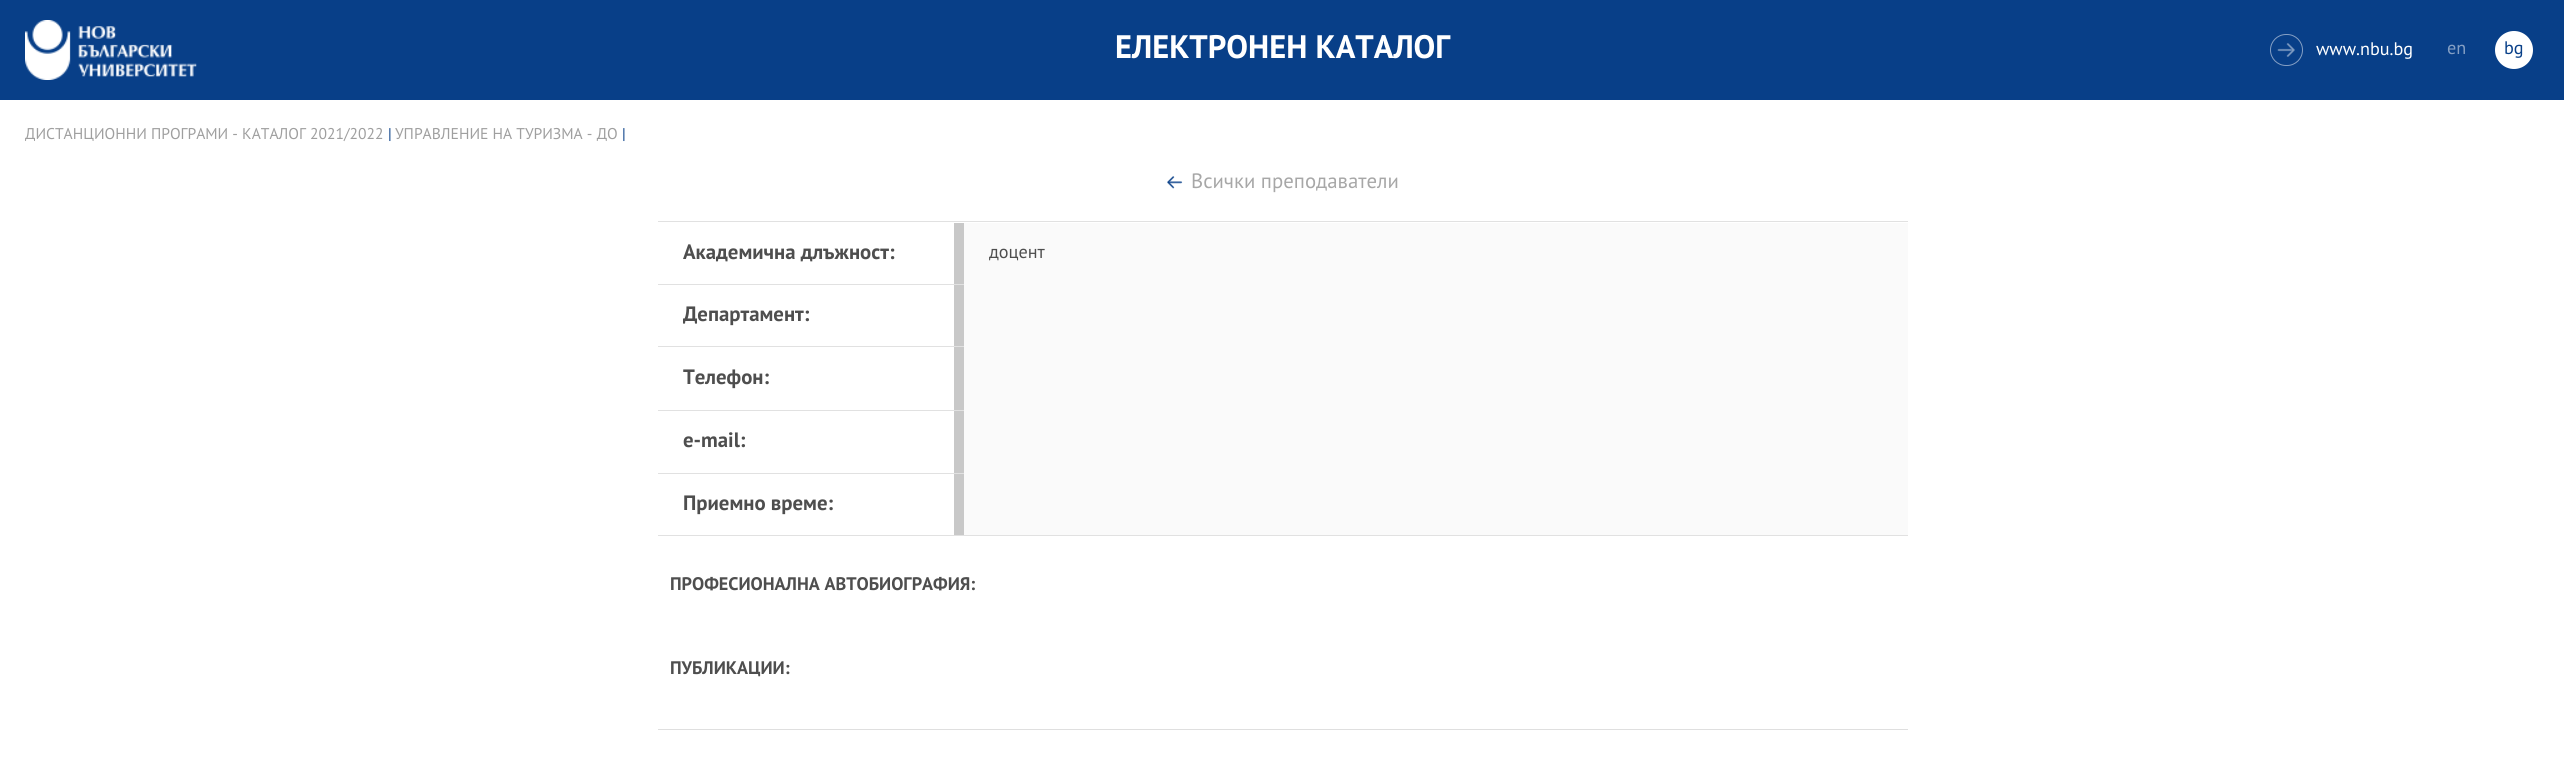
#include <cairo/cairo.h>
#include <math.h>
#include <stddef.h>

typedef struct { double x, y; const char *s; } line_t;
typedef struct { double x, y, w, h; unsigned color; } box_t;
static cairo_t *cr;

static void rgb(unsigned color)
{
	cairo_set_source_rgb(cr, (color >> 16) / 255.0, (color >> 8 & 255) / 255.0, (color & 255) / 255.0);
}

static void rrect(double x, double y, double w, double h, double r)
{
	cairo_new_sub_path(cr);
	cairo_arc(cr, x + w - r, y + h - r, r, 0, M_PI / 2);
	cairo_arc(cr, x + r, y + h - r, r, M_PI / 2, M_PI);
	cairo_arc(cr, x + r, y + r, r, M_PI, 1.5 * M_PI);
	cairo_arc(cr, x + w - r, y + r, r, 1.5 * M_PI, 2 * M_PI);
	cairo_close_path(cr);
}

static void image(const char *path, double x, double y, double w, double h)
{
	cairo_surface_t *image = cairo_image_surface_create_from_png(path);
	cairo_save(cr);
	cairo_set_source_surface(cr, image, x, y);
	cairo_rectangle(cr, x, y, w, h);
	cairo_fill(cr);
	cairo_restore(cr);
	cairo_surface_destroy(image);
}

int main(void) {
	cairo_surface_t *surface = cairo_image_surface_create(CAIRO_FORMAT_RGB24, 2564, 761);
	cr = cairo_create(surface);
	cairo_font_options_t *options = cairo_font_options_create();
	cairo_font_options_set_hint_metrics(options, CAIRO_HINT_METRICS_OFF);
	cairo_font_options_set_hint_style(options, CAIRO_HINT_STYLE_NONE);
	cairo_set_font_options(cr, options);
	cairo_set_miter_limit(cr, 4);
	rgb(0xffffff);
	cairo_paint(cr);
	rgb(0x083f88);
	cairo_rectangle(cr, 0, 0, 2564, 100);
	cairo_fill(cr);
	image("img/1.png", 25, 20, 172, 60);
	rrect(2270.5, 34.5, 32, 31, 15.5);
	rgb(0x849fc4);
	cairo_set_line_width(cr, 1);
	cairo_stroke(cr);
	image("img/2.png", 2277, 43, 18, 14);
	rgb(0xffffff);
	cairo_arc(cr, 2514, 50, 19, 0, 2 * M_PI);
	cairo_fill(cr);
	image("img/3.png", 1167, 176, 16, 13);
	{
		static const box_t items[] = {
			{658, 535, 1250, 1, 0xe1e1e1},
			{658, 221, 1250, 1, 0xe1e1e1},
			{954, 223, 10, 61, 0xc8c8c8},
			{964, 223, 944, 312, 0xfafafa},
			{658, 284, 306, 1, 0xe1e1e1},
			{954, 285, 10, 125, 0xc8c8c8},
			{658, 346, 306, 1, 0xe1e1e1},
			{658, 410, 306, 1, 0xe1e1e1},
			{954, 411, 10, 62, 0xc8c8c8},
			{658, 473, 306, 1, 0xe1e1e1},
			{954, 474, 10, 61, 0xc8c8c8},
			{658, 729, 1250, 1, 0xdfdfdf},
		};
		for (size_t i = 0; i < sizeof items / sizeof *items; i++) {
			rgb(items[i].color);
			cairo_rectangle(cr, items[i].x, items[i].y, items[i].w, items[i].h);
			cairo_fill(cr);
		}
	}
	cairo_select_font_face(cr, "PT Sans", CAIRO_FONT_SLANT_NORMAL, CAIRO_FONT_WEIGHT_BOLD);
	cairo_set_font_size(cr, 31.25);
	rgb(0xffffff);
	cairo_move_to(cr, 1115, 58);
	cairo_show_text(cr, "ЕЛЕКТРОНЕН КАТАЛОГ");
	cairo_select_font_face(cr, "PT Sans", CAIRO_FONT_SLANT_NORMAL, CAIRO_FONT_WEIGHT_NORMAL);
	cairo_set_font_size(cr, 17.5);
	cairo_move_to(cr, 2316, 55);
	cairo_show_text(cr, "www.nbu.bg");
	rgb(0x849fc4);
	cairo_move_to(cr, 2447, 54);
	cairo_show_text(cr, "en");
	rgb(0x083f88);
	cairo_move_to(cr, 2504, 54);
	cairo_show_text(cr, "bg");
	cairo_set_font_size(cr, 15);
	rgb(0x9f9f9f);
	cairo_move_to(cr, 25, 139);
	cairo_show_text(cr, "ДИСТАНЦИОННИ ПРОГРАМИ - КАТАЛОГ 2021/2022");
	rgb(0x083f88);
	cairo_move_to(cr, 388, 139);
	cairo_show_text(cr, "|");
	rgb(0x9f9f9f);
	cairo_move_to(cr, 395, 139);
	cairo_show_text(cr, "УПРАВЛЕНИЕ НА ТУРИЗМА - ДО");
	rgb(0x083f88);
	cairo_move_to(cr, 622, 139);
	cairo_show_text(cr, "|");
	cairo_set_font_size(cr, 20);
	rgb(0xa7a7a7);
	cairo_move_to(cr, 1191, 188);
	cairo_show_text(cr, "Всички преподаватели");
	cairo_select_font_face(cr, "PT Sans", CAIRO_FONT_SLANT_NORMAL, CAIRO_FONT_WEIGHT_BOLD);
	rgb(0x4e4e4e);
	cairo_move_to(cr, 683, 259);
	cairo_show_text(cr, "Академична длъжност:");
	cairo_select_font_face(cr, "PT Sans", CAIRO_FONT_SLANT_NORMAL, CAIRO_FONT_WEIGHT_NORMAL);
	cairo_set_font_size(cr, 17.5);
	cairo_move_to(cr, 989, 258);
	cairo_show_text(cr, "доцент");
	cairo_select_font_face(cr, "PT Sans", CAIRO_FONT_SLANT_NORMAL, CAIRO_FONT_WEIGHT_BOLD);
	cairo_set_font_size(cr, 20);
	{
		static const line_t items[] = {
			{683, 321, "Департамент:"},
			{683, 384, "Телефон:"},
			{683, 447, "e-mail:"},
			{683, 510, "Приемно време:"},
		};
		for (size_t i = 0; i < sizeof items / sizeof *items; i++) {
			cairo_move_to(cr, items[i].x, items[i].y);
			cairo_show_text(cr, items[i].s);
		}
	}
	cairo_set_font_size(cr, 17.5);
	cairo_move_to(cr, 670, 590);
	cairo_show_text(cr, "ПРОФЕСИОНАЛНА АВТОБИОГРАФИЯ:");
	cairo_move_to(cr, 670, 674);
	cairo_show_text(cr, "ПУБЛИКАЦИИ:");
	cairo_surface_write_to_png(surface, "page.png");
	cairo_font_options_destroy(options);
	cairo_destroy(cr);
	cairo_surface_destroy(surface);
	return 0;
}
